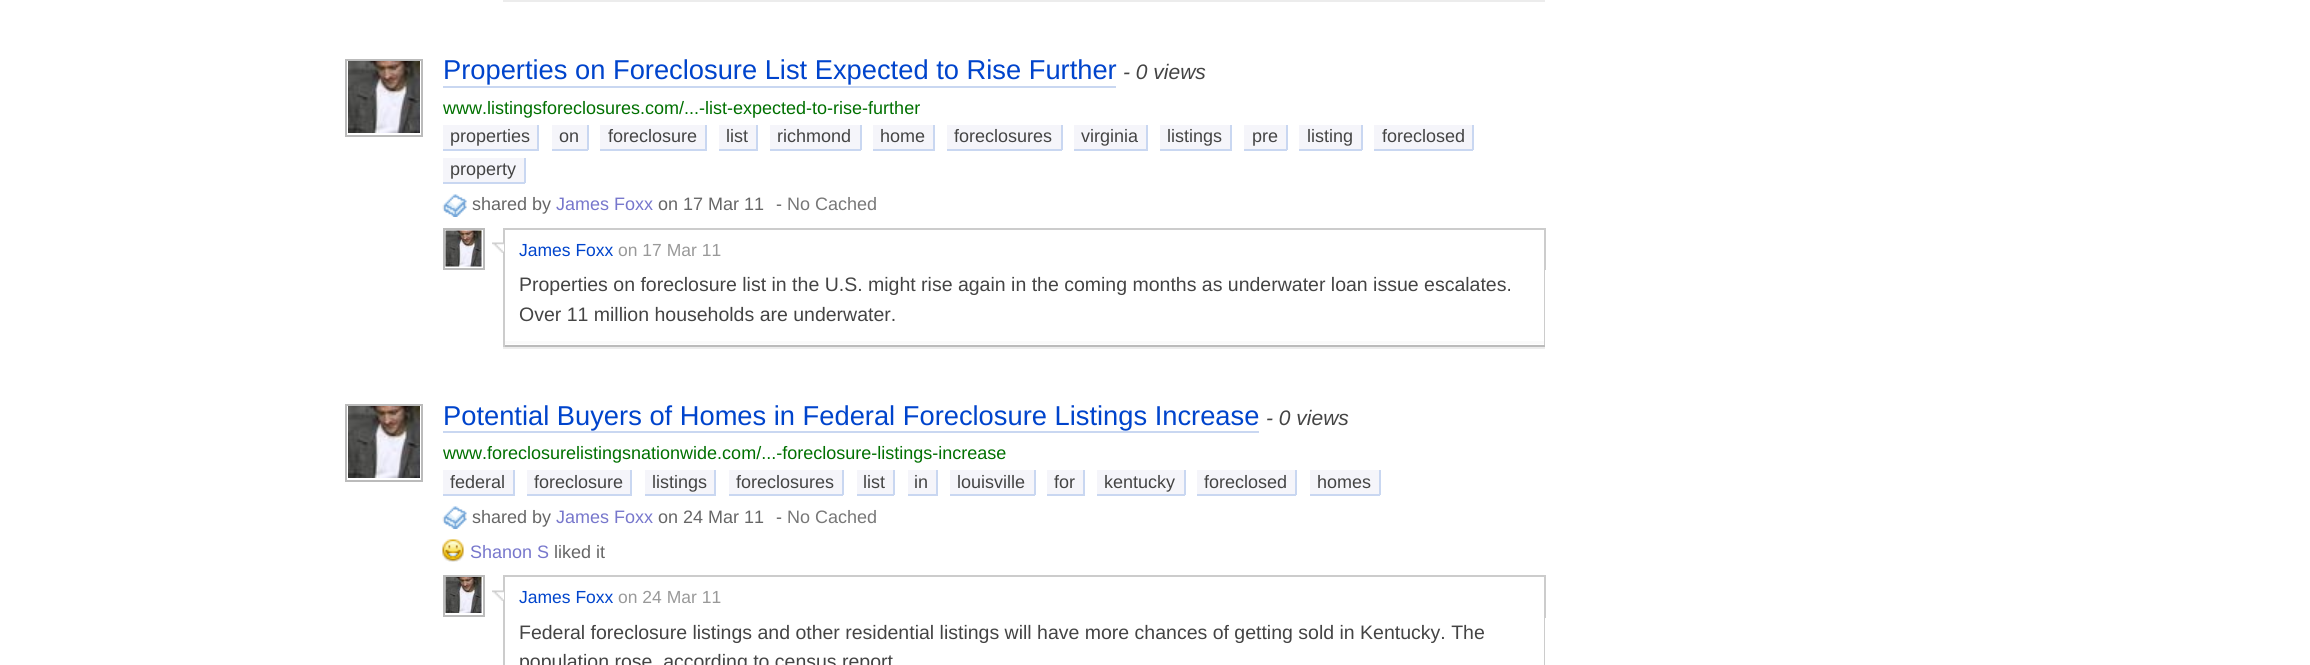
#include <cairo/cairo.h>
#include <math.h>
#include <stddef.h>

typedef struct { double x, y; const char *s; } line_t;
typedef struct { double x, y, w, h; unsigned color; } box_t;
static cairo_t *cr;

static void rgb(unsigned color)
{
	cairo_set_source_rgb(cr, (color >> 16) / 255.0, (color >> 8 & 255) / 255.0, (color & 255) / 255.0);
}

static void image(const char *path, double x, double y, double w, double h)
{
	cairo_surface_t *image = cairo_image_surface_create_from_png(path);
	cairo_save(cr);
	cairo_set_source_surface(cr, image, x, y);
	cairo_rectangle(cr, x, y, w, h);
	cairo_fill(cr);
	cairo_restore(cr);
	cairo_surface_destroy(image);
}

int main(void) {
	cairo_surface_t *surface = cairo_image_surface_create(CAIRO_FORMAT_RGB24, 2310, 665);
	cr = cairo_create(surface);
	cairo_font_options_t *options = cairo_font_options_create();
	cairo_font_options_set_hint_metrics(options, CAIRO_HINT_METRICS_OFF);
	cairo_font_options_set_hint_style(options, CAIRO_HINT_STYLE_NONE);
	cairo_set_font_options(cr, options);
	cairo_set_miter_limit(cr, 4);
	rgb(0xffffff);
	cairo_paint(cr);
	rgb(0xececec);
	cairo_rectangle(cr, 503, 0, 1042, 2);
	cairo_fill(cr);
	cairo_rectangle(cr, 346, 60, 76, 76);
	rgb(0xbbbbbb);
	cairo_stroke(cr);
	image("img/1.png", 348, 61, 72, 72);
	{
		static const box_t items[] = {
			{443, 86, 673, 2, 0xc9d7f1},
			{443, 125, 94, 24, 0xf5f5fa},
			{537, 125, 2, 25, 0xc9d7f1},
			{443, 149, 96, 2, 0xc9d7f1},
			{552, 125, 35, 24, 0xf5f5fa},
			{587, 125, 2, 25, 0xc9d7f1},
			{552, 149, 36, 2, 0xc9d7f1},
			{600, 125, 105, 24, 0xf5f5fa},
			{705, 125, 2, 25, 0xc9d7f1},
			{600, 149, 107, 2, 0xc9d7f1},
			{719, 125, 37, 24, 0xf5f5fa},
			{756, 125, 2, 25, 0xc9d7f1},
			{719, 149, 39, 2, 0xc9d7f1},
			{770, 125, 90, 24, 0xf5f5fa},
			{860, 125, 2, 25, 0xc9d7f1},
			{770, 149, 91, 2, 0xc9d7f1},
			{873, 125, 60, 24, 0xf5f5fa},
			{933, 125, 2, 25, 0xc9d7f1},
			{873, 149, 62, 2, 0xc9d7f1},
			{947, 125, 114, 24, 0xf5f5fa},
			{1061, 125, 2, 25, 0xc9d7f1},
			{947, 149, 115, 2, 0xc9d7f1},
			{1074, 125, 72, 24, 0xf5f5fa},
			{1146, 125, 2, 25, 0xc9d7f1},
			{1074, 149, 74, 2, 0xc9d7f1},
			{1160, 125, 70, 24, 0xf5f5fa},
			{1230, 125, 2, 25, 0xc9d7f1},
			{1160, 149, 72, 2, 0xc9d7f1},
			{1244, 125, 42, 24, 0xf5f5fa},
			{1286, 125, 2, 25, 0xc9d7f1},
			{1244, 149, 43, 2, 0xc9d7f1},
			{1299, 125, 62, 24, 0xf5f5fa},
			{1361, 125, 2, 25, 0xc9d7f1},
			{1299, 149, 63, 2, 0xc9d7f1},
			{1374, 125, 98, 24, 0xf5f5fa},
			{1472, 125, 2, 25, 0xc9d7f1},
			{1374, 149, 99, 2, 0xc9d7f1},
			{443, 158, 81, 24, 0xf5f5fa},
			{524, 158, 2, 25, 0xc9d7f1},
			{443, 182, 82, 2, 0xc9d7f1},
		};
		for (size_t i = 0; i < sizeof items / sizeof *items; i++) {
			rgb(items[i].color);
			cairo_rectangle(cr, items[i].x, items[i].y, items[i].w, items[i].h);
			cairo_fill(cr);
		}
	}
	image("img/2.png", 442, 194, 25, 23);
	cairo_rectangle(cr, 444, 229, 40, 40);
	rgb(0xbbbbbb);
	cairo_stroke(cr);
	image("img/3.png", 445, 230, 37, 37);
	{
		static const box_t items[] = {
			{503, 228, 1042, 2, 0xcccccc},
			{1544, 228, 2, 42, 0xcccccc},
			{503, 228, 2, 42, 0xcccccc},
			{503, 347, 1042, 2, 0xececec},
		};
		for (size_t i = 0; i < sizeof items / sizeof *items; i++) {
			rgb(items[i].color);
			cairo_rectangle(cr, items[i].x, items[i].y, items[i].w, items[i].h);
			cairo_fill(cr);
		}
	}
	image("img/4.png", 492, 242, 12, 11);
	{
		static const box_t items[] = {
			{503, 341, 1042, 3, 0xfafafa},
			{1544, 270, 1, 77, 0xcccccc},
			{503, 345, 1042, 2, 0xbbbbbb},
			{503, 270, 2, 77, 0xcccccc},
		};
		for (size_t i = 0; i < sizeof items / sizeof *items; i++) {
			rgb(items[i].color);
			cairo_rectangle(cr, items[i].x, items[i].y, items[i].w, items[i].h);
			cairo_fill(cr);
		}
	}
	cairo_rectangle(cr, 346, 405, 76, 76);
	rgb(0xbbbbbb);
	cairo_stroke(cr);
	image("img/1.png", 348, 406, 72, 72);
	{
		static const box_t items[] = {
			{443, 431, 816, 2, 0xc9d7f1},
			{443, 470, 70, 24, 0xf5f5fa},
			{513, 470, 2, 25, 0xc9d7f1},
			{443, 494, 72, 2, 0xc9d7f1},
			{527, 470, 103, 24, 0xf5f5fa},
			{630, 470, 2, 25, 0xc9d7f1},
			{527, 494, 105, 2, 0xc9d7f1},
			{645, 470, 69, 24, 0xf5f5fa},
			{714, 470, 2, 25, 0xc9d7f1},
			{645, 494, 71, 2, 0xc9d7f1},
			{729, 470, 113, 24, 0xf5f5fa},
			{842, 470, 2, 25, 0xc9d7f1},
			{729, 494, 114, 2, 0xc9d7f1},
			{857, 470, 36, 24, 0xf5f5fa},
			{893, 470, 2, 25, 0xc9d7f1},
			{857, 494, 37, 2, 0xc9d7f1},
			{908, 470, 28, 24, 0xf5f5fa},
			{936, 470, 2, 25, 0xc9d7f1},
			{908, 494, 30, 2, 0xc9d7f1},
			{950, 470, 84, 24, 0xf5f5fa},
			{1034, 470, 2, 25, 0xc9d7f1},
			{950, 494, 85, 2, 0xc9d7f1},
			{1047, 470, 36, 24, 0xf5f5fa},
			{1083, 470, 2, 25, 0xc9d7f1},
			{1047, 494, 38, 2, 0xc9d7f1},
			{1097, 470, 87, 24, 0xf5f5fa},
			{1184, 470, 2, 25, 0xc9d7f1},
			{1097, 494, 88, 2, 0xc9d7f1},
			{1197, 470, 98, 24, 0xf5f5fa},
			{1295, 470, 2, 25, 0xc9d7f1},
			{1197, 494, 99, 2, 0xc9d7f1},
			{1310, 470, 69, 24, 0xf5f5fa},
			{1379, 470, 2, 25, 0xc9d7f1},
			{1310, 494, 70, 2, 0xc9d7f1},
		};
		for (size_t i = 0; i < sizeof items / sizeof *items; i++) {
			rgb(items[i].color);
			cairo_rectangle(cr, items[i].x, items[i].y, items[i].w, items[i].h);
			cairo_fill(cr);
		}
	}
	image("img/2.png", 442, 506, 25, 23);
	image("img/5.png", 442, 539, 22, 23);
	cairo_rectangle(cr, 444, 576, 40, 40);
	rgb(0xbbbbbb);
	cairo_stroke(cr);
	image("img/6.png", 445, 577, 37, 36);
	{
		static const box_t items[] = {
			{503, 575, 1042, 2, 0xcccccc},
			{1544, 575, 2, 43, 0xcccccc},
			{503, 575, 2, 90, 0xcccccc},
		};
		for (size_t i = 0; i < sizeof items / sizeof *items; i++) {
			rgb(items[i].color);
			cairo_rectangle(cr, items[i].x, items[i].y, items[i].w, items[i].h);
			cairo_fill(cr);
		}
	}
	image("img/4.png", 492, 590, 12, 11);
	cairo_rectangle(cr, 1544, 618, 1, 47);
	cairo_fill(cr);
	cairo_select_font_face(cr, "Liberation Sans", CAIRO_FONT_SLANT_NORMAL, CAIRO_FONT_WEIGHT_NORMAL);
	cairo_set_font_size(cr, 27.3);
	rgb(0x0044cc);
	cairo_move_to(cr, 443, 79);
	cairo_show_text(cr, "Properties on Foreclosure List Expected to Rise Further");
	cairo_select_font_face(cr, "Liberation Sans", CAIRO_FONT_SLANT_ITALIC, CAIRO_FONT_WEIGHT_NORMAL);
	cairo_set_font_size(cr, 21);
	rgb(0x444444);
	cairo_move_to(cr, 1123, 79);
	cairo_show_text(cr, "- 0 views");
	cairo_select_font_face(cr, "Liberation Sans", CAIRO_FONT_SLANT_NORMAL, CAIRO_FONT_WEIGHT_NORMAL);
	cairo_set_font_size(cr, 18);
	rgb(0x007000);
	cairo_move_to(cr, 443, 114);
	cairo_show_text(cr, "www.listingsforeclosures.com/...-list-expected-to-rise-further");
	rgb(0x444444);
	{
		static const line_t items[] = {
			{450, 142, "properties"},
			{559, 142, "on"},
			{608, 142, "foreclosure"},
			{726, 142, "list"},
			{777, 142, "richmond"},
			{880, 142, "home"},
			{954, 142, "foreclosures"},
			{1081, 142, "virginia"},
			{1167, 142, "listings"},
			{1252, 142, "pre"},
			{1307, 142, "listing"},
			{1382, 142, "foreclosed"},
			{450, 175, "property"},
		};
		for (size_t i = 0; i < sizeof items / sizeof *items; i++) {
			cairo_move_to(cr, items[i].x, items[i].y);
			cairo_show_text(cr, items[i].s);
		}
	}
	rgb(0x666666);
	cairo_move_to(cr, 472, 210);
	cairo_show_text(cr, "shared by");
	rgb(0x7777cc);
	cairo_move_to(cr, 556, 210);
	cairo_show_text(cr, "James Foxx");
	rgb(0x666666);
	cairo_move_to(cr, 658, 210);
	cairo_show_text(cr, "on 17 Mar 11");
	cairo_move_to(cr, 776, 210);
	cairo_show_text(cr, "-");
	rgb(0x777777);
	cairo_move_to(cr, 787, 210);
	cairo_show_text(cr, "No Cached");
	cairo_set_font_size(cr, 17.5);
	rgb(0x0044cc);
	cairo_move_to(cr, 519, 256);
	cairo_show_text(cr, "James Foxx");
	rgb(0x999999);
	cairo_move_to(cr, 618, 256);
	cairo_show_text(cr, "on 17 Mar 11");
	cairo_set_font_size(cr, 19.5);
	rgb(0x444444);
	cairo_move_to(cr, 519, 291);
	cairo_show_text(cr, "Properties on foreclosure list in the U.S. might rise again in the coming months as underwater loan issue escalates.");
	cairo_move_to(cr, 519, 321);
	cairo_show_text(cr, "Over 11 million households are underwater.");
	cairo_set_font_size(cr, 27.3);
	rgb(0x0044cc);
	cairo_move_to(cr, 443, 425);
	cairo_show_text(cr, "Potential Buyers of Homes in Federal Foreclosure Listings Increase");
	cairo_select_font_face(cr, "Liberation Sans", CAIRO_FONT_SLANT_ITALIC, CAIRO_FONT_WEIGHT_NORMAL);
	cairo_set_font_size(cr, 21);
	rgb(0x444444);
	cairo_move_to(cr, 1266, 425);
	cairo_show_text(cr, "- 0 views");
	cairo_select_font_face(cr, "Liberation Sans", CAIRO_FONT_SLANT_NORMAL, CAIRO_FONT_WEIGHT_NORMAL);
	cairo_set_font_size(cr, 18);
	rgb(0x007000);
	cairo_move_to(cr, 443, 459);
	cairo_show_text(cr, "www.foreclosurelistingsnationwide.com/...-foreclosure-listings-increase");
	rgb(0x444444);
	{
		static const line_t items[] = {
			{450, 488, "federal"},
			{534, 488, "foreclosure"},
			{652, 488, "listings"},
			{736, 488, "foreclosures"},
			{863, 488, "list"},
			{914, 488, "in"},
			{957, 488, "louisville"},
			{1054, 488, "for"},
			{1104, 488, "kentucky"},
			{1204, 488, "foreclosed"},
			{1317, 488, "homes"},
		};
		for (size_t i = 0; i < sizeof items / sizeof *items; i++) {
			cairo_move_to(cr, items[i].x, items[i].y);
			cairo_show_text(cr, items[i].s);
		}
	}
	rgb(0x666666);
	cairo_move_to(cr, 472, 523);
	cairo_show_text(cr, "shared by");
	rgb(0x7777cc);
	cairo_move_to(cr, 556, 523);
	cairo_show_text(cr, "James Foxx");
	rgb(0x666666);
	cairo_move_to(cr, 658, 523);
	cairo_show_text(cr, "on 24 Mar 11");
	cairo_move_to(cr, 776, 523);
	cairo_show_text(cr, "-");
	rgb(0x777777);
	cairo_move_to(cr, 787, 523);
	cairo_show_text(cr, "No Cached");
	rgb(0x7777cc);
	cairo_move_to(cr, 470, 558);
	cairo_show_text(cr, "Shanon S");
	rgb(0x666666);
	cairo_move_to(cr, 554, 558);
	cairo_show_text(cr, "liked it");
	cairo_set_font_size(cr, 17.5);
	rgb(0x0044cc);
	cairo_move_to(cr, 519, 603);
	cairo_show_text(cr, "James Foxx");
	rgb(0x999999);
	cairo_move_to(cr, 618, 603);
	cairo_show_text(cr, "on 24 Mar 11");
	cairo_set_font_size(cr, 19.5);
	rgb(0x444444);
	cairo_move_to(cr, 519, 639);
	cairo_show_text(cr, "Federal foreclosure listings and other residential listings will have more chances of getting sold in Kentucky. The");
	cairo_move_to(cr, 519, 668);
	cairo_show_text(cr, "population rose, according to census report");
	cairo_surface_write_to_png(surface, "page.png");
	cairo_font_options_destroy(options);
	cairo_destroy(cr);
	cairo_surface_destroy(surface);
	return 0;
}
